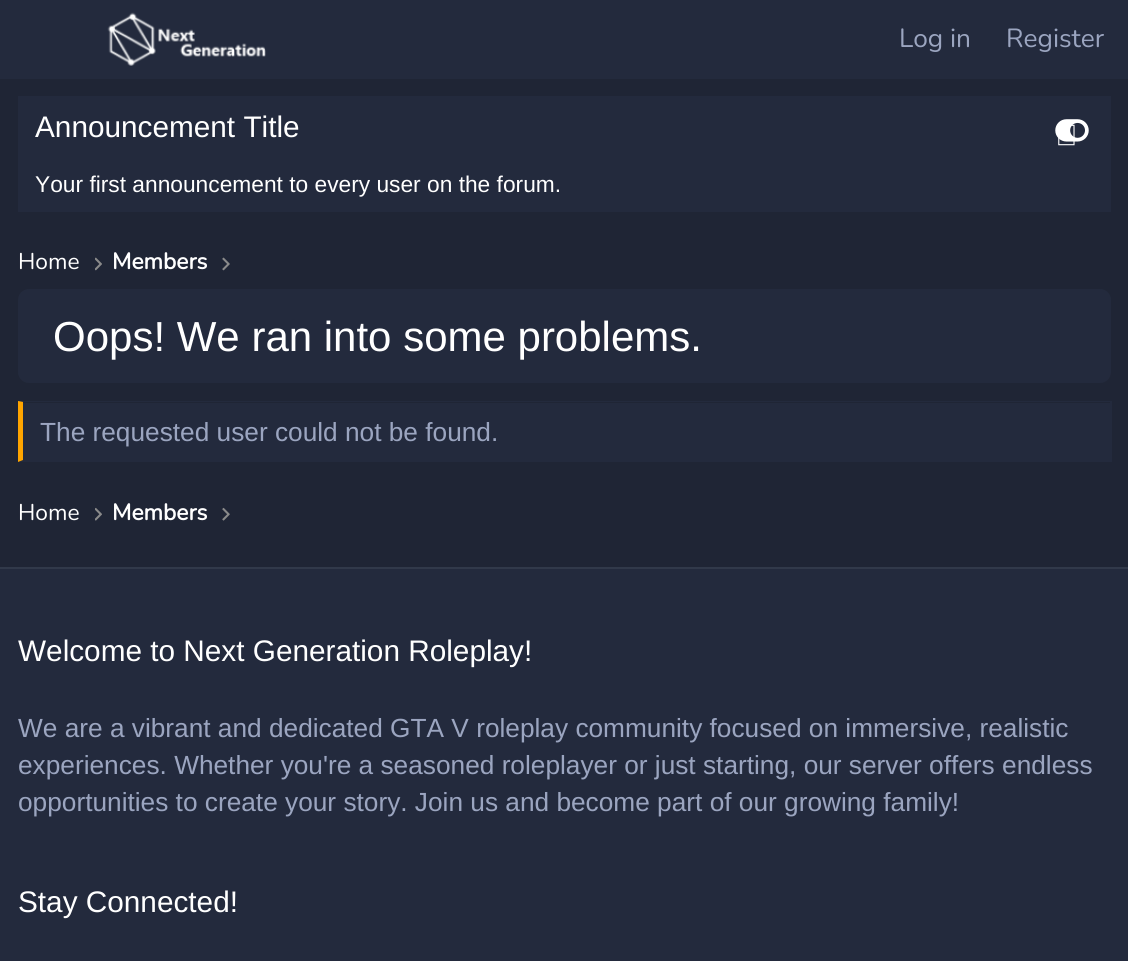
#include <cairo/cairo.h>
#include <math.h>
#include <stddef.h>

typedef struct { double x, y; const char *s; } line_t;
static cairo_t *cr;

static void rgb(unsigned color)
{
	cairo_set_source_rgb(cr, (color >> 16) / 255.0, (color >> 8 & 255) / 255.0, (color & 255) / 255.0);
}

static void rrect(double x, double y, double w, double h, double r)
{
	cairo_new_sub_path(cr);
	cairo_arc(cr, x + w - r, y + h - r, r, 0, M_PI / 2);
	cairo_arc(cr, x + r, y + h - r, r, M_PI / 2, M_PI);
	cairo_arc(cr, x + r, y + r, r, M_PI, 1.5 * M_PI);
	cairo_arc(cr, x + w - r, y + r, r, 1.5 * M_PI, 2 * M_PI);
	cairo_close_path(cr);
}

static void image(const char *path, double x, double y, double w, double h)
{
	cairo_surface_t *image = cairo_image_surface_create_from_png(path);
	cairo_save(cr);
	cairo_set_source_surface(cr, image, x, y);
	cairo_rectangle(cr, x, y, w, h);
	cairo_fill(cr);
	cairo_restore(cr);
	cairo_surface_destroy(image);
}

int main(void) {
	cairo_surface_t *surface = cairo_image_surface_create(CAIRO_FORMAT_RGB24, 1128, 961);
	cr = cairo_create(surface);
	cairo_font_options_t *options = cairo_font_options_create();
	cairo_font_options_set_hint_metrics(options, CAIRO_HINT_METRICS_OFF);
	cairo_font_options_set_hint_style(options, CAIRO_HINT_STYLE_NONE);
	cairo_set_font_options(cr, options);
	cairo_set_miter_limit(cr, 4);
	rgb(0x1f2535);
	cairo_paint(cr);
	rgb(0x232a3d);
	cairo_rectangle(cr, 0, 0, 1128, 79);
	cairo_fill(cr);
	image("img/1.png", 107, 12, 159, 54);
	cairo_rectangle(cr, 18, 96, 1093, 116);
	cairo_fill(cr);
	image("img/2.png", 1055, 119, 34, 23);
	image("img/3.png", 1058, 124, 17, 22);
	image("img/4.png", 95, 257, 7, 14);
	image("img/5.png", 222, 257, 8, 14);
	rrect(18, 289, 1093, 94, 11);
	cairo_fill(cr);
	cairo_rectangle(cr, 23, 403, 1087, 57);
	cairo_fill(cr);
	cairo_new_path(cr);
	cairo_move_to(cr, 18, 401);
	cairo_line_to(cr, 1111, 401);
	cairo_line_to(cr, 1110, 402);
	cairo_line_to(cr, 23, 402);
	cairo_close_path(cr);
	cairo_fill(cr);
	cairo_rectangle(cr, 1110, 401, 2, 61);
	cairo_fill(cr);
	cairo_new_path(cr);
	cairo_move_to(cr, 1111, 462);
	cairo_line_to(cr, 18, 462);
	cairo_line_to(cr, 23, 460);
	cairo_line_to(cr, 1110, 460);
	cairo_close_path(cr);
	cairo_fill(cr);
	rgb(0xffa500);
	cairo_new_path(cr);
	cairo_move_to(cr, 18, 462);
	cairo_line_to(cr, 18, 401);
	cairo_line_to(cr, 23, 402);
	cairo_line_to(cr, 23, 460);
	cairo_close_path(cr);
	cairo_fill(cr);
	image("img/6.png", 95, 507, 7, 14);
	image("img/7.png", 222, 507, 8, 14);
	rgb(0x232a3d);
	cairo_rectangle(cr, 0, 569, 1128, 392);
	cairo_fill(cr);
	rgb(0x31394a);
	cairo_rectangle(cr, 0, 567, 1128, 2);
	cairo_fill(cr);
	cairo_select_font_face(cr, "Nunito ExtraLight", CAIRO_FONT_SLANT_NORMAL, CAIRO_FONT_WEIGHT_NORMAL);
	cairo_set_font_size(cr, 26.25);
	rgb(0x9ba5c0);
	cairo_move_to(cr, 899, 47);
	cairo_show_text(cr, "Log in");
	cairo_move_to(cr, 1006, 47);
	cairo_show_text(cr, "Register");
	cairo_select_font_face(cr, "Liberation Sans", CAIRO_FONT_SLANT_NORMAL, CAIRO_FONT_WEIGHT_NORMAL);
	cairo_set_font_size(cr, 29.75);
	rgb(0xffffff);
	cairo_move_to(cr, 35, 137);
	cairo_show_text(cr, "Announcement Title");
	cairo_set_font_size(cr, 22.75);
	cairo_move_to(cr, 35, 192);
	cairo_show_text(cr, "Your first announcement to every user on the forum.");
	cairo_select_font_face(cr, "Nunito ExtraLight", CAIRO_FONT_SLANT_NORMAL, CAIRO_FONT_WEIGHT_NORMAL);
	cairo_move_to(cr, 18, 269);
	cairo_show_text(cr, "Home");
	cairo_select_font_face(cr, "Nunito", CAIRO_FONT_SLANT_NORMAL, CAIRO_FONT_WEIGHT_BOLD);
	cairo_move_to(cr, 112, 269);
	cairo_show_text(cr, "Members");
	cairo_select_font_face(cr, "Liberation Sans", CAIRO_FONT_SLANT_NORMAL, CAIRO_FONT_WEIGHT_NORMAL);
	cairo_set_font_size(cr, 42);
	cairo_move_to(cr, 53, 351);
	cairo_show_text(cr, "Oops! We ran into some problems.");
	cairo_set_font_size(cr, 26.25);
	rgb(0x9ba5c0);
	cairo_move_to(cr, 40, 441);
	cairo_show_text(cr, "The requested user could not be found.");
	cairo_select_font_face(cr, "Nunito ExtraLight", CAIRO_FONT_SLANT_NORMAL, CAIRO_FONT_WEIGHT_NORMAL);
	cairo_set_font_size(cr, 22.75);
	rgb(0xffffff);
	cairo_move_to(cr, 18, 520);
	cairo_show_text(cr, "Home");
	cairo_select_font_face(cr, "Nunito", CAIRO_FONT_SLANT_NORMAL, CAIRO_FONT_WEIGHT_BOLD);
	cairo_move_to(cr, 112, 520);
	cairo_show_text(cr, "Members");
	cairo_select_font_face(cr, "Liberation Sans", CAIRO_FONT_SLANT_NORMAL, CAIRO_FONT_WEIGHT_NORMAL);
	cairo_set_font_size(cr, 29.75);
	cairo_move_to(cr, 18, 661);
	cairo_show_text(cr, "Welcome to Next Generation Roleplay!");
	cairo_set_font_size(cr, 26.25);
	rgb(0x9ba5c0);
	{
		static const line_t items[] = {
			{18, 737, "We are a vibrant and dedicated GTA V roleplay community focused on immersive, realistic"},
			{18, 774, "experiences. Whether you're a seasoned roleplayer or just starting, our server offers endless"},
			{18, 811, "opportunities to create your story. Join us and become part of our growing family!"},
		};
		for (size_t i = 0; i < sizeof items / sizeof *items; i++) {
			cairo_move_to(cr, items[i].x, items[i].y);
			cairo_show_text(cr, items[i].s);
		}
	}
	cairo_set_font_size(cr, 29.75);
	rgb(0xffffff);
	cairo_move_to(cr, 18, 912);
	cairo_show_text(cr, "Stay Connected!");
	cairo_surface_write_to_png(surface, "page.png");
	cairo_font_options_destroy(options);
	cairo_destroy(cr);
	cairo_surface_destroy(surface);
	return 0;
}
